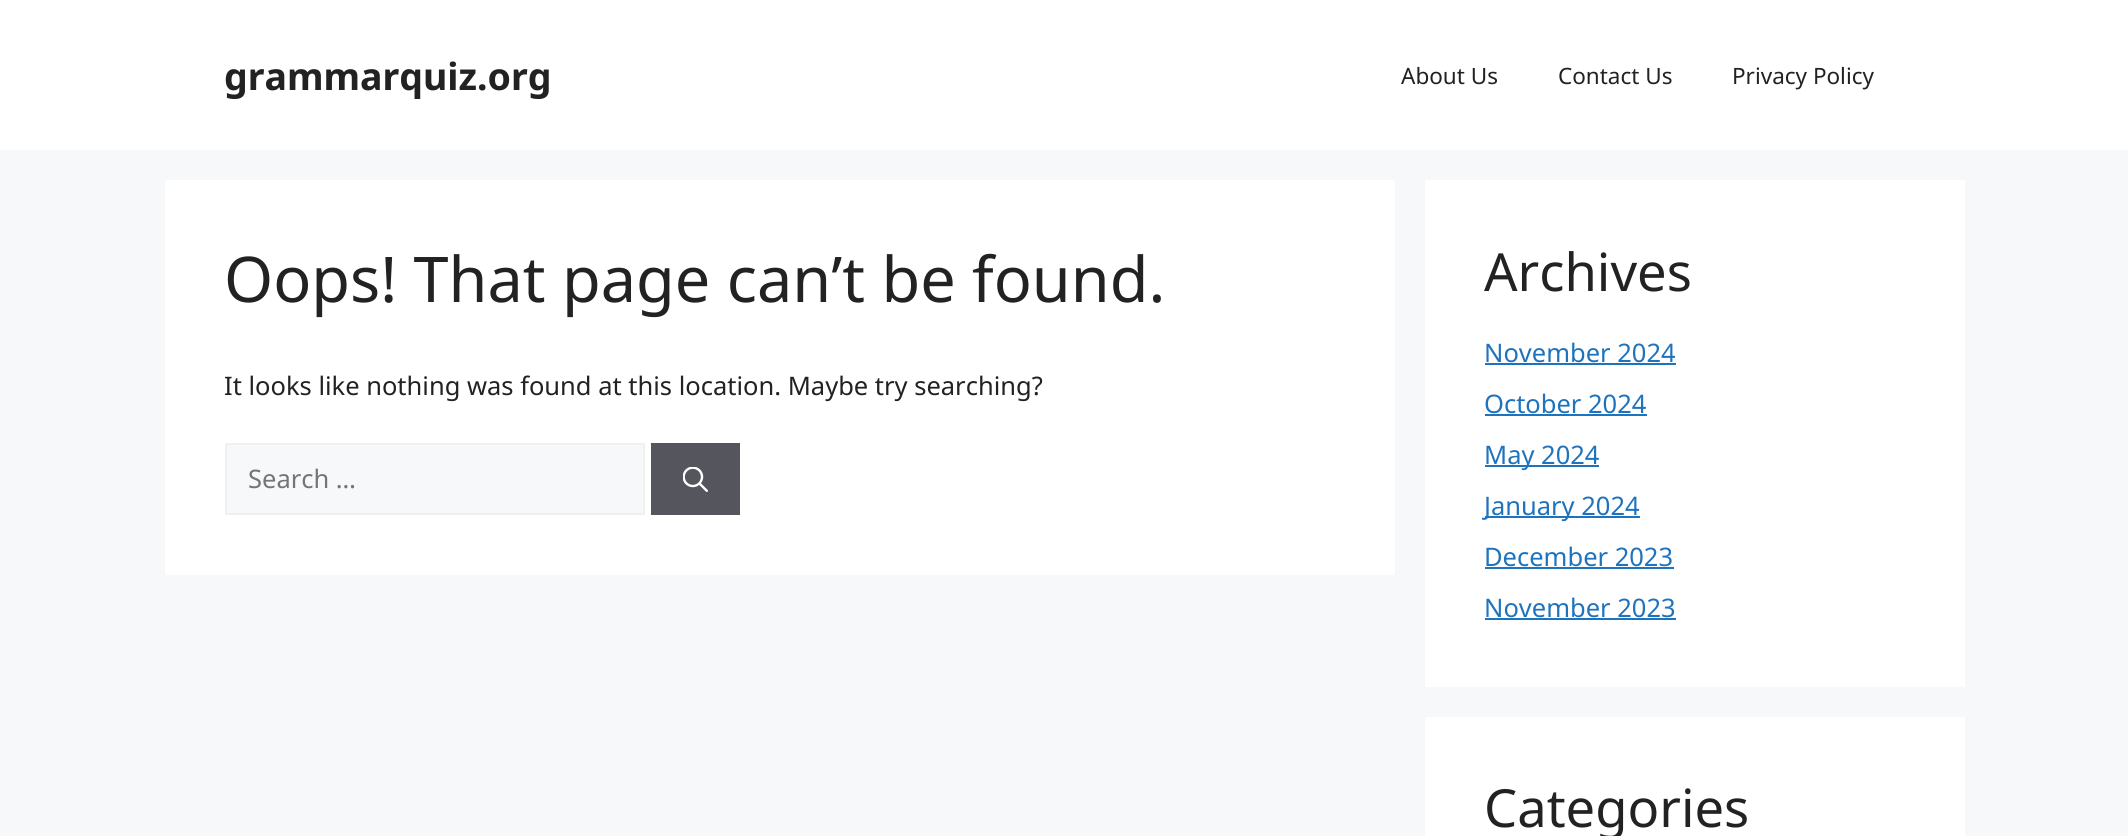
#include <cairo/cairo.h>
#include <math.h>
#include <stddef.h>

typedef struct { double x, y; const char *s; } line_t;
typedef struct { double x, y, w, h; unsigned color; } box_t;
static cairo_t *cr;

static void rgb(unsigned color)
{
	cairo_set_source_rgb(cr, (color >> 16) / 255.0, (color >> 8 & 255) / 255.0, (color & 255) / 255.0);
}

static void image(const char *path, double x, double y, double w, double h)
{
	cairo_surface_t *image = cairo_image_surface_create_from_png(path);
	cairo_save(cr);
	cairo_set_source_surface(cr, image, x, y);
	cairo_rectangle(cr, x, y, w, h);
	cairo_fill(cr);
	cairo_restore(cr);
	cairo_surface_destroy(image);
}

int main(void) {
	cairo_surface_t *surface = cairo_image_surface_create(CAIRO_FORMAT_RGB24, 2128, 836);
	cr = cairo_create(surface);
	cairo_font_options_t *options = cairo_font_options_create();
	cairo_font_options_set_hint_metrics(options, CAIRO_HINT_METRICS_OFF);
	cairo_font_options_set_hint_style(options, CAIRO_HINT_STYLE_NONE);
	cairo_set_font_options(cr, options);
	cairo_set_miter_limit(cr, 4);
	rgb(0xf7f8f9);
	cairo_paint(cr);
	rgb(0xffffff);
	cairo_rectangle(cr, 0, 0, 2128, 150);
	cairo_fill(cr);
	cairo_rectangle(cr, 165, 180, 1230, 395);
	cairo_fill(cr);
	rgb(0xf7f8f9);
	cairo_rectangle(cr, 226, 444, 418, 70);
	cairo_fill_preserve(cr);
	rgb(0xf0f0f0);
	cairo_stroke(cr);
	rgb(0x55555e);
	cairo_rectangle(cr, 651, 443, 89, 72);
	cairo_fill(cr);
	image("img/1.png", 683, 467, 25, 25);
	{
		static const box_t items[] = {
			{1425, 180, 540, 507, 0xffffff},
			{1485, 363, 191, 2, 0x1e73be},
			{1485, 414, 162, 2, 0x1e73be},
			{1485, 465, 114, 2, 0x1e73be},
			{1485, 516, 155, 2, 0x1e73be},
			{1485, 567, 189, 2, 0x1e73be},
			{1485, 618, 191, 2, 0x1e73be},
			{1425, 717, 540, 119, 0xffffff},
		};
		for (size_t i = 0; i < sizeof items / sizeof *items; i++) {
			rgb(items[i].color);
			cairo_rectangle(cr, items[i].x, items[i].y, items[i].w, items[i].h);
			cairo_fill(cr);
		}
	}
	cairo_select_font_face(cr, "Noto Sans", CAIRO_FONT_SLANT_NORMAL, CAIRO_FONT_WEIGHT_BOLD);
	cairo_set_font_size(cr, 37.5);
	rgb(0x222222);
	cairo_move_to(cr, 224, 90);
	cairo_show_text(cr, "grammarquiz.org");
	cairo_select_font_face(cr, "Noto Sans", CAIRO_FONT_SLANT_NORMAL, CAIRO_FONT_WEIGHT_NORMAL);
	cairo_set_font_size(cr, 22.5);
	{
		static const line_t items[] = {
			{1401, 84, "About Us"},
			{1558, 84, "Contact Us"},
			{1732, 84, "Privacy Policy"},
		};
		for (size_t i = 0; i < sizeof items / sizeof *items; i++) {
			cairo_move_to(cr, items[i].x, items[i].y);
			cairo_show_text(cr, items[i].s);
		}
	}
	cairo_set_font_size(cr, 63);
	cairo_move_to(cr, 224, 302);
	cairo_show_text(cr, "Oops! That page can’t be found.");
	cairo_set_font_size(cr, 25.5);
	cairo_move_to(cr, 224, 395);
	cairo_show_text(cr, "It looks like nothing was found at this location. Maybe try searching?");
	rgb(0x757575);
	cairo_move_to(cr, 248, 488);
	cairo_show_text(cr, "Search …");
	cairo_set_font_size(cr, 52.5);
	rgb(0x222222);
	cairo_move_to(cr, 1484, 291);
	cairo_show_text(cr, "Archives");
	cairo_set_font_size(cr, 25.5);
	rgb(0x1e73be);
	{
		static const line_t items[] = {
			{1484, 362, "November 2024"},
			{1484, 413, "October 2024"},
			{1484, 464, "May 2024"},
			{1484, 515, "January 2024"},
			{1484, 566, "December 2023"},
			{1484, 617, "November 2023"},
		};
		for (size_t i = 0; i < sizeof items / sizeof *items; i++) {
			cairo_move_to(cr, items[i].x, items[i].y);
			cairo_show_text(cr, items[i].s);
		}
	}
	cairo_set_font_size(cr, 52.5);
	rgb(0x222222);
	cairo_move_to(cr, 1484, 827);
	cairo_show_text(cr, "Categories");
	cairo_surface_write_to_png(surface, "page.png");
	cairo_font_options_destroy(options);
	cairo_destroy(cr);
	cairo_surface_destroy(surface);
	return 0;
}
